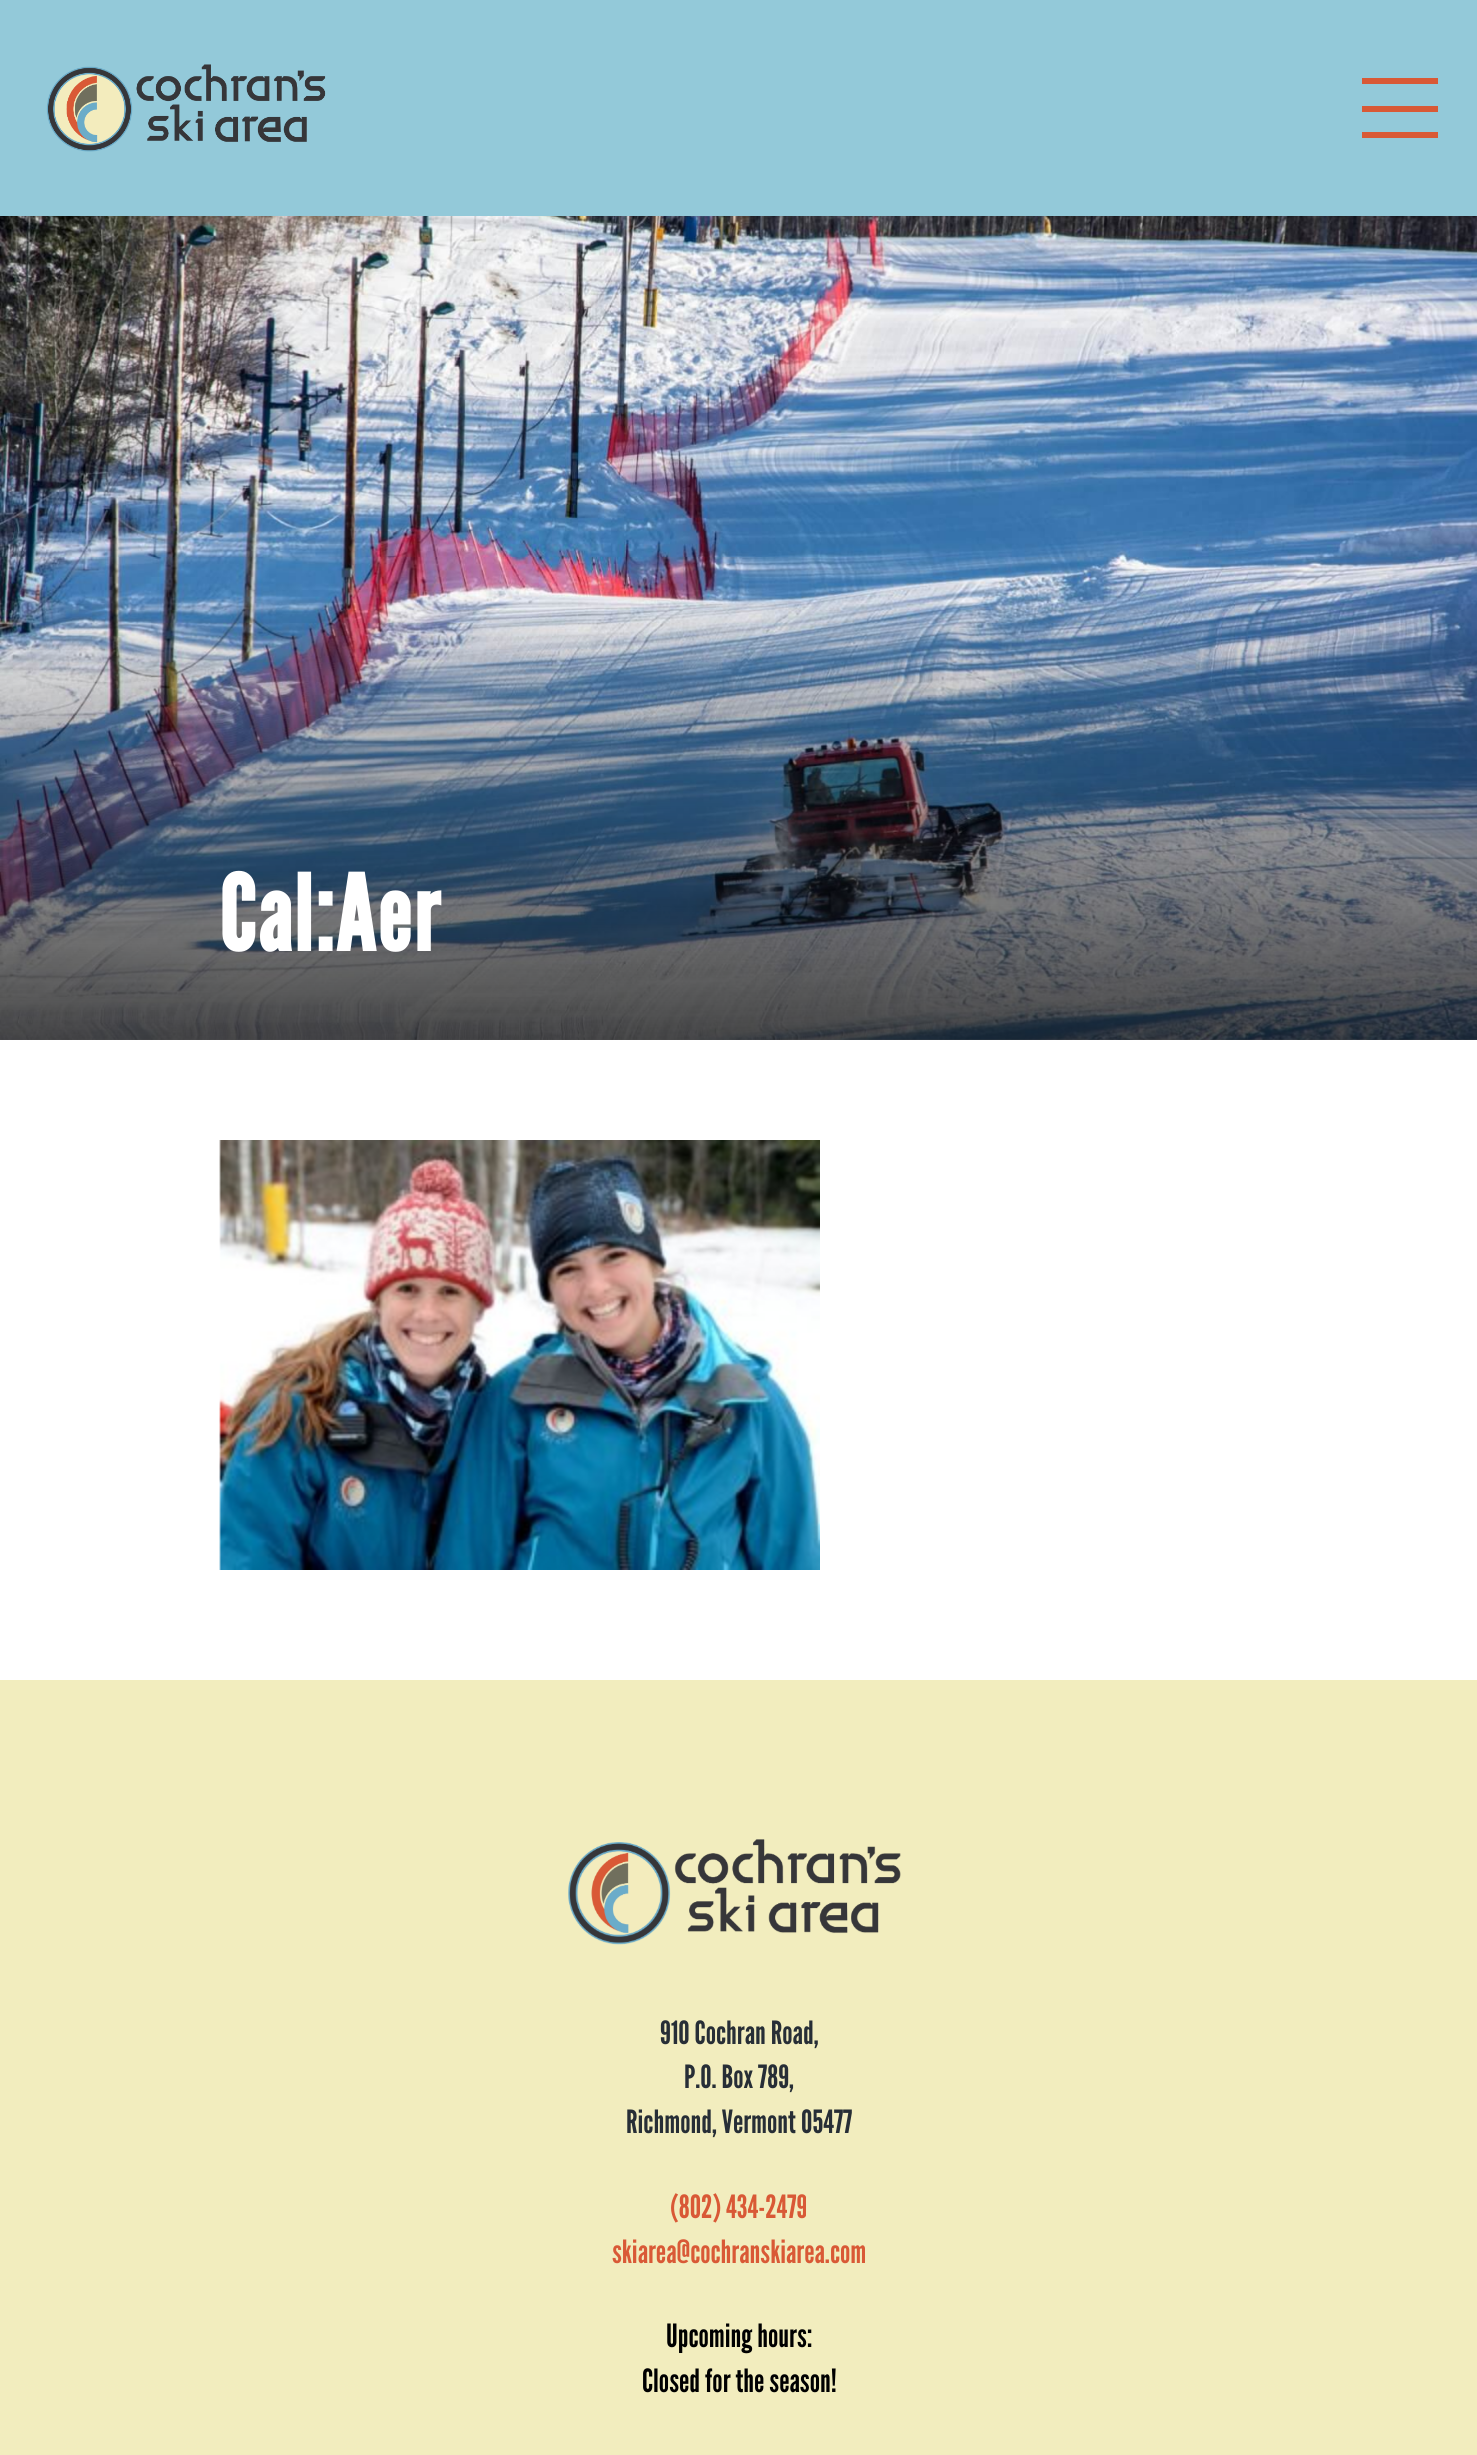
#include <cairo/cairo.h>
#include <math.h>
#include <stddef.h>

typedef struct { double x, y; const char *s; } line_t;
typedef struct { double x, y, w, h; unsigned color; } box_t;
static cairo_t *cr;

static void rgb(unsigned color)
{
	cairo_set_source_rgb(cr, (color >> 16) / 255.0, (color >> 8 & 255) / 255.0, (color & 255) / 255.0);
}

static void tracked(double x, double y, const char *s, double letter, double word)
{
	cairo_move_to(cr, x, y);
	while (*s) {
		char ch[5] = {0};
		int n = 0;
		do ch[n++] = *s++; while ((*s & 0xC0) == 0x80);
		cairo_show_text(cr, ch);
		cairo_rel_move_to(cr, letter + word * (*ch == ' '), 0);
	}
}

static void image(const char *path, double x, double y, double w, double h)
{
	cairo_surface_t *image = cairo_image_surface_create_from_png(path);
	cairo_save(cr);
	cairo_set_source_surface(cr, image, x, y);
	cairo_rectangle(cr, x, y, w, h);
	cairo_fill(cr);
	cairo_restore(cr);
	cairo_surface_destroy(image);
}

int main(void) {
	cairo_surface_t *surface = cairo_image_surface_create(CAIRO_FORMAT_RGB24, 1477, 2455);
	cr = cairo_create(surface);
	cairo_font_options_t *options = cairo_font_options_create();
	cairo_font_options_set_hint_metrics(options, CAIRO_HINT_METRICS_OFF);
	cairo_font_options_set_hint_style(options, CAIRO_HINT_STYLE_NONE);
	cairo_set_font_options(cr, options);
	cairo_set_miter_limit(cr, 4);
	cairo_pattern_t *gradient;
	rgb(0xffffff);
	cairo_paint(cr);
	rgb(0x93c9d9);
	cairo_rectangle(cr, 0, 0, 1477, 216);
	cairo_fill(cr);
	image("img/1.png", 46, 64, 280, 88);
	{
		static const box_t items[] = {
			{1362, 78, 76, 6, 0xd95936},
			{1362, 106, 76, 6, 0xd95936},
			{1362, 132, 76, 6, 0xd95936},
		};
		for (size_t i = 0; i < sizeof items / sizeof *items; i++) {
			rgb(items[i].color);
			cairo_rectangle(cr, items[i].x, items[i].y, items[i].w, items[i].h);
			cairo_fill(cr);
		}
	}
	image("img/2.png", 0, 216, 1477, 824);
	gradient = cairo_pattern_create_linear(739, 140, 739, 1040);
	cairo_pattern_add_color_stop_rgba(gradient, 0.5, 0, 0, 0, 0);
	cairo_pattern_add_color_stop_rgba(gradient, 1, 0, 0, 0, 0.7);
	cairo_set_source(cr, gradient);
	cairo_pattern_destroy(gradient);
	cairo_rectangle(cr, 0, 604, 1477, 436);
	cairo_fill(cr);
	image("img/3.png", 219, 1140, 601, 430);
	rgb(0xf2edbe);
	cairo_rectangle(cr, 0, 1680, 1477, 775);
	cairo_fill(cr);
	image("img/4.png", 568, 1839, 333, 106);
	cairo_select_font_face(cr, "League Gothic", CAIRO_FONT_SLANT_NORMAL, CAIRO_FONT_WEIGHT_BOLD);
	cairo_set_font_size(cr, 104);
	rgb(0xffffff);
	tracked(219, 951, "Cal:Aer", 2.5, 0);
	cairo_select_font_face(cr, "League Gothic", CAIRO_FONT_SLANT_NORMAL, CAIRO_FONT_WEIGHT_NORMAL);
	cairo_set_font_size(cr, 32);
	rgb(0x272e36);
	{
		static const line_t items[] = {
			{660, 2044, "910 Cochran Road,"},
			{684, 2088, "P.O. Box 789,"},
			{626, 2133, "Richmond, Vermont 05477"},
		};
		for (size_t i = 0; i < sizeof items / sizeof *items; i++) {
			cairo_move_to(cr, items[i].x, items[i].y);
			cairo_show_text(cr, items[i].s);
		}
	}
	rgb(0xd95936);
	cairo_move_to(cr, 670, 2218);
	cairo_show_text(cr, "(802) 434-2479");
	cairo_move_to(cr, 612, 2263);
	cairo_show_text(cr, "skiarea@cochranskiarea.com");
	rgb(0x000000);
	cairo_move_to(cr, 666, 2347);
	cairo_show_text(cr, "Upcoming hours:");
	cairo_move_to(cr, 642, 2392);
	cairo_show_text(cr, "Closed for the season!");
	cairo_surface_write_to_png(surface, "page.png");
	cairo_font_options_destroy(options);
	cairo_destroy(cr);
	cairo_surface_destroy(surface);
	return 0;
}
